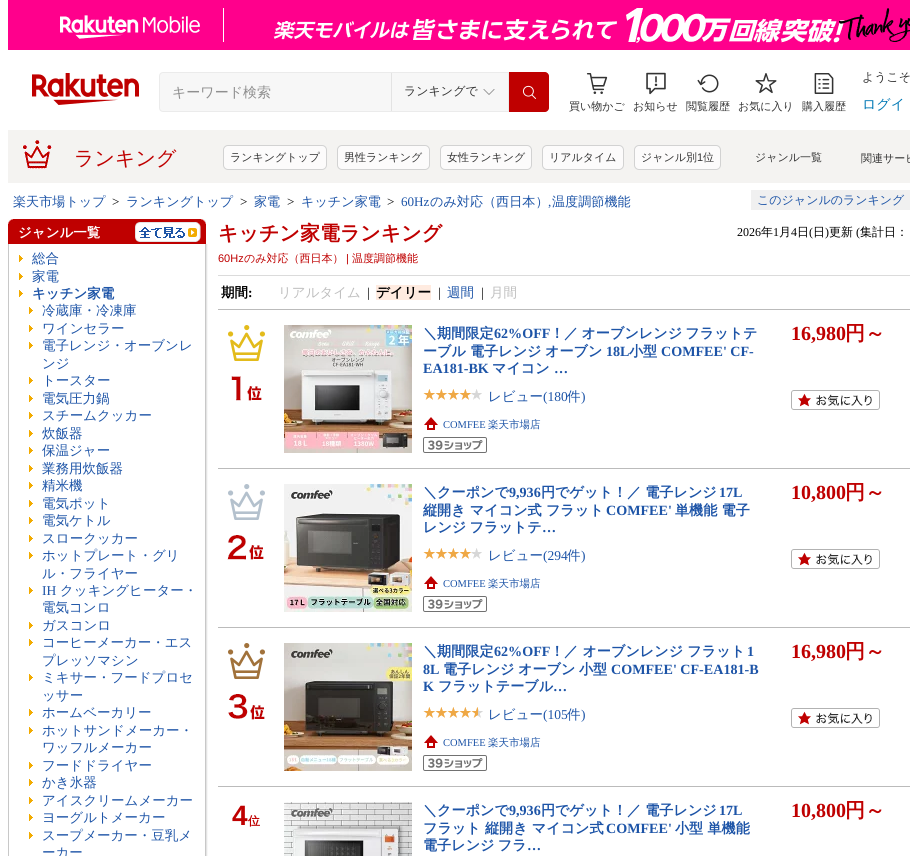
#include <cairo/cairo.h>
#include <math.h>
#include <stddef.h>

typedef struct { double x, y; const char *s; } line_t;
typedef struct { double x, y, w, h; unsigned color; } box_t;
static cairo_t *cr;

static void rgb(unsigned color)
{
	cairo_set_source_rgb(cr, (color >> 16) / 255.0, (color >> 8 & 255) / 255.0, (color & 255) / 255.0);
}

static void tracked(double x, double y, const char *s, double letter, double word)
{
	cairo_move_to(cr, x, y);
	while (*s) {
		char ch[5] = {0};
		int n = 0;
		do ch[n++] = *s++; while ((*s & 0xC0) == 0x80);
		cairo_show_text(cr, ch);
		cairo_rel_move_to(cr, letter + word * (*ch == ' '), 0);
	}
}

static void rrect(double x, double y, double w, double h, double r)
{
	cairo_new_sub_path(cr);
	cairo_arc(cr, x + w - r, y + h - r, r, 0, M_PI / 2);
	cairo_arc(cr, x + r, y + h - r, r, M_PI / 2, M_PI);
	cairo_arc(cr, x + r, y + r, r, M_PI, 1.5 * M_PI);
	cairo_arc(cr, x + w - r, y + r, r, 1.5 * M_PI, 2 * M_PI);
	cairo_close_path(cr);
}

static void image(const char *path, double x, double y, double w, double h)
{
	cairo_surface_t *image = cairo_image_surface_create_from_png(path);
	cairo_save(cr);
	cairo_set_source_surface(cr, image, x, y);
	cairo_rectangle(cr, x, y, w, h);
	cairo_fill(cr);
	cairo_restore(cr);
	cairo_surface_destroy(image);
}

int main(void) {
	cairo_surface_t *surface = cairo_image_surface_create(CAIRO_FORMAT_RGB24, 910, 856);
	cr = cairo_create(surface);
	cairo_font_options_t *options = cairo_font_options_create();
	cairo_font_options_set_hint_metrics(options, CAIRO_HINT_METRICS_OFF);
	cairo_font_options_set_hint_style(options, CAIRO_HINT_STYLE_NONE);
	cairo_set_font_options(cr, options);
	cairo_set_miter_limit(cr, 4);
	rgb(0xffffff);
	cairo_paint(cr);
	image("img/1.png", 8, 0, 902, 50);
	image("img/2.png", 32, 73, 107, 32);
	rgb(0xf7f7f7);
	cairo_new_path(cr);
	cairo_move_to(cr, 163, 72.5);
	cairo_line_to(cr, 508.5, 72.5);
	cairo_line_to(cr, 508.5, 111.5);
	cairo_line_to(cr, 163, 111.5);
	cairo_curve_to(cr, 161, 111.5, 159.5, 110, 159.5, 108);
	cairo_line_to(cr, 159.5, 76);
	cairo_curve_to(cr, 159.5, 74, 161, 72.5, 163, 72.5);
	cairo_close_path(cr);
	cairo_fill_preserve(cr);
	rgb(0xebebeb);
	cairo_set_line_width(cr, 1);
	cairo_stroke(cr);
	rgb(0xe3e3e3);
	cairo_rectangle(cr, 391, 73, 1, 38);
	cairo_fill(cr);
	image("img/3.png", 483, 89, 12, 6);
	rgb(0xbf0000);
	cairo_new_path(cr);
	cairo_move_to(cr, 509, 72);
	cairo_line_to(cr, 545, 72);
	cairo_curve_to(cr, 547, 72, 549, 74, 549, 76);
	cairo_line_to(cr, 549, 108);
	cairo_curve_to(cr, 549, 110, 547, 112, 545, 112);
	cairo_line_to(cr, 509, 112);
	cairo_close_path(cr);
	cairo_fill(cr);
	image("img/4.png", 522, 85, 14, 14);
	image("img/5.png", 586, 73, 22, 21);
	image("img/6.png", 646, 72, 20, 23);
	image("img/7.png", 697, 74, 22, 19);
	image("img/8.png", 755, 73, 22, 21);
	image("img/9.png", 814, 73, 20, 21);
	rgb(0xf4f3f1);
	cairo_rectangle(cr, 8, 130, 902, 53);
	cairo_fill(cr);
	image("img/10.png", 22, 140, 30, 29);
	rgb(0xfcfbfb);
	rrect(223.5, 145.5, 103, 24, 4.5);
	cairo_fill_preserve(cr);
	rgb(0xd2d2d2);
	cairo_stroke(cr);
	rgb(0xfcfbfb);
	rrect(337.5, 145.5, 92, 24, 4.5);
	cairo_fill_preserve(cr);
	rgb(0xd2d2d2);
	cairo_stroke(cr);
	rgb(0xfcfbfb);
	rrect(440.5, 145.5, 91, 24, 4.5);
	cairo_fill_preserve(cr);
	rgb(0xd2d2d2);
	cairo_stroke(cr);
	rgb(0xfcfbfb);
	rrect(542.5, 145.5, 81, 24, 4.5);
	cairo_fill_preserve(cr);
	rgb(0xd2d2d2);
	cairo_stroke(cr);
	rgb(0xfcfbfb);
	rrect(634.5, 145.5, 86, 24, 4.5);
	cairo_fill_preserve(cr);
	rgb(0xd2d2d2);
	cairo_stroke(cr);
	rgb(0xf0f0f0);
	cairo_rectangle(cr, 751, 190, 159, 20);
	cairo_fill(cr);
	image("img/11.png", 206, 244, 2, 612);
	image("img/12.png", 8, 219, 198, 5);
	rgb(0xbf0000);
	cairo_rectangle(cr, 8, 224, 198, 20);
	cairo_fill(cr);
	image("img/13.png", 135, 222, 66, 20);
	rgb(0xc8c8c8);
	cairo_rectangle(cr, 205, 244, 1, 612);
	cairo_fill(cr);
	cairo_rectangle(cr, 8, 244, 1, 612);
	cairo_fill(cr);
	image("img/14.png", 19, 255, 4, 7);
	image("img/14.png", 19, 273, 4, 7);
	image("img/14.png", 19, 290, 4, 7);
	image("img/14.png", 29, 307, 4, 7);
	image("img/14.png", 29, 325, 4, 7);
	image("img/14.png", 29, 342, 4, 7);
	image("img/14.png", 29, 377, 4, 7);
	image("img/14.png", 29, 395, 4, 7);
	image("img/14.png", 29, 412, 4, 7);
	image("img/14.png", 29, 430, 4, 7);
	image("img/14.png", 29, 447, 4, 7);
	image("img/14.png", 29, 465, 4, 7);
	image("img/14.png", 29, 482, 4, 7);
	image("img/14.png", 29, 500, 4, 7);
	image("img/14.png", 29, 517, 4, 7);
	image("img/14.png", 29, 535, 4, 7);
	image("img/14.png", 29, 552, 4, 7);
	image("img/14.png", 29, 587, 4, 7);
	image("img/14.png", 29, 622, 4, 7);
	image("img/14.png", 29, 639, 4, 7);
	image("img/14.png", 29, 674, 4, 7);
	image("img/14.png", 29, 709, 4, 7);
	image("img/14.png", 29, 727, 4, 7);
	image("img/14.png", 29, 762, 4, 7);
	image("img/14.png", 29, 779, 4, 7);
	image("img/14.png", 29, 797, 4, 7);
	image("img/14.png", 29, 814, 4, 7);
	image("img/14.png", 29, 832, 4, 7);
	{
		static const box_t items[] = {
			{218, 275, 692, 1, 0xdbdbdb},
			{376, 285, 55, 15, 0xffebe0},
			{218, 309, 692, 1, 0xbbbbbb},
			{218, 468, 692, 1, 0xbbbbbb},
		};
		for (size_t i = 0; i < sizeof items / sizeof *items; i++) {
			rgb(items[i].color);
			cairo_rectangle(cr, items[i].x, items[i].y, items[i].w, items[i].h);
			cairo_fill(cr);
		}
	}
	image("img/15.png", 228, 325, 37, 76);
	image("img/16.png", 284, 325, 128, 128);
	image("img/17.png", 423, 389, 12, 11);
	image("img/17.png", 435, 389, 12, 11);
	image("img/17.png", 447, 389, 12, 11);
	image("img/17.png", 459, 389, 12, 11);
	image("img/18.png", 471, 389, 11, 11);
	image("img/19.png", 424, 417, 14, 13);
	image("img/20.png", 423, 437, 64, 16);
	image("img/21.png", 791, 390, 89, 20);
	cairo_rectangle(cr, 218, 627, 692, 1);
	cairo_fill(cr);
	image("img/22.png", 227, 484, 38, 76);
	image("img/23.png", 284, 484, 128, 128);
	image("img/17.png", 423, 548, 12, 11);
	image("img/17.png", 435, 548, 12, 11);
	image("img/17.png", 447, 548, 12, 11);
	image("img/17.png", 459, 548, 12, 11);
	image("img/18.png", 471, 548, 11, 11);
	image("img/19.png", 424, 576, 14, 13);
	image("img/20.png", 423, 596, 64, 16);
	image("img/21.png", 791, 549, 89, 20);
	cairo_rectangle(cr, 218, 786, 692, 1);
	cairo_fill(cr);
	image("img/24.png", 228, 643, 37, 77);
	image("img/25.png", 284, 643, 128, 128);
	image("img/17.png", 423, 707, 12, 11);
	image("img/17.png", 435, 707, 12, 11);
	image("img/17.png", 447, 707, 12, 11);
	image("img/17.png", 459, 707, 12, 11);
	image("img/26.png", 471, 707, 12, 11);
	image("img/19.png", 424, 735, 14, 13);
	image("img/20.png", 423, 755, 64, 16);
	image("img/21.png", 791, 708, 89, 20);
	image("img/27.png", 284, 802, 128, 54);
	cairo_select_font_face(cr, "WenQuanYi Zen Hei Medium", CAIRO_FONT_SLANT_NORMAL, CAIRO_FONT_WEIGHT_NORMAL);
	cairo_set_font_size(cr, 14);
	rgb(0x8f8f8f);
	cairo_move_to(cr, 172, 97);
	cairo_show_text(cr, "キーワード検索");
	cairo_set_font_size(cr, 12);
	rgb(0x333333);
	cairo_move_to(cr, 404, 95);
	cairo_show_text(cr, "ランキングで");
	cairo_move_to(cr, 862, 81);
	cairo_show_text(cr, "ようこそ");
	cairo_set_font_size(cr, 14);
	rgb(0x0078b5);
	cairo_move_to(cr, 862, 109);
	cairo_show_text(cr, "ログイ");
	cairo_set_font_size(cr, 11);
	rgb(0x333333);
	{
		static const line_t items[] = {
			{569, 110, "買い物かご"},
			{633, 110, "お知らせ"},
			{686, 110, "閲覧履歴"},
			{738, 110, "お気に入り"},
			{802, 110, "購入履歴"},
		};
		for (size_t i = 0; i < sizeof items / sizeof *items; i++) {
			cairo_move_to(cr, items[i].x, items[i].y);
			cairo_show_text(cr, items[i].s);
		}
	}
	cairo_set_font_size(cr, 20);
	rgb(0xbf0000);
	cairo_move_to(cr, 74, 165);
	cairo_show_text(cr, "ランキング");
	cairo_set_font_size(cr, 11);
	rgb(0x333333);
	{
		static const line_t items[] = {
			{230, 161, "ランキングトップ"},
			{344, 161, "男性ランキング"},
			{447, 161, "女性ランキング"},
			{549, 161, "リアルタイム"},
			{641, 161, "ジャンル別"},
		};
		for (size_t i = 0; i < sizeof items / sizeof *items; i++) {
			cairo_move_to(cr, items[i].x, items[i].y);
			cairo_show_text(cr, items[i].s);
		}
	}
	cairo_select_font_face(cr, "Liberation Sans", CAIRO_FONT_SLANT_NORMAL, CAIRO_FONT_WEIGHT_NORMAL);
	cairo_move_to(cr, 697, 161);
	cairo_show_text(cr, "1");
	cairo_select_font_face(cr, "WenQuanYi Zen Hei Medium", CAIRO_FONT_SLANT_NORMAL, CAIRO_FONT_WEIGHT_NORMAL);
	{
		static const line_t items[] = {
			{703, 161, "位"},
			{755, 161, "ジャンル一覧"},
			{861, 162, "関連サービ"},
		};
		for (size_t i = 0; i < sizeof items / sizeof *items; i++) {
			cairo_move_to(cr, items[i].x, items[i].y);
			cairo_show_text(cr, items[i].s);
		}
	}
	cairo_set_font_size(cr, 13.1);
	rgb(0x1d54a7);
	cairo_move_to(cr, 13, 206);
	cairo_show_text(cr, "楽天市場トップ");
	cairo_select_font_face(cr, "Liberation Serif", CAIRO_FONT_SLANT_NORMAL, CAIRO_FONT_WEIGHT_NORMAL);
	rgb(0x000000);
	cairo_move_to(cr, 112, 206);
	cairo_show_text(cr, ">");
	cairo_select_font_face(cr, "WenQuanYi Zen Hei Medium", CAIRO_FONT_SLANT_NORMAL, CAIRO_FONT_WEIGHT_NORMAL);
	rgb(0x1d54a7);
	cairo_move_to(cr, 126, 206);
	cairo_show_text(cr, "ランキングトップ");
	cairo_select_font_face(cr, "Liberation Serif", CAIRO_FONT_SLANT_NORMAL, CAIRO_FONT_WEIGHT_NORMAL);
	rgb(0x000000);
	cairo_move_to(cr, 240, 206);
	cairo_show_text(cr, ">");
	cairo_select_font_face(cr, "WenQuanYi Zen Hei Medium", CAIRO_FONT_SLANT_NORMAL, CAIRO_FONT_WEIGHT_NORMAL);
	rgb(0x1d54a7);
	cairo_move_to(cr, 254, 206);
	cairo_show_text(cr, "家電");
	cairo_select_font_face(cr, "Liberation Serif", CAIRO_FONT_SLANT_NORMAL, CAIRO_FONT_WEIGHT_NORMAL);
	rgb(0x000000);
	cairo_move_to(cr, 287, 206);
	cairo_show_text(cr, ">");
	cairo_select_font_face(cr, "WenQuanYi Zen Hei Medium", CAIRO_FONT_SLANT_NORMAL, CAIRO_FONT_WEIGHT_NORMAL);
	rgb(0x1d54a7);
	cairo_move_to(cr, 301, 206);
	cairo_show_text(cr, "キッチン家電");
	cairo_select_font_face(cr, "Liberation Serif", CAIRO_FONT_SLANT_NORMAL, CAIRO_FONT_WEIGHT_NORMAL);
	rgb(0x000000);
	cairo_move_to(cr, 387, 206);
	cairo_show_text(cr, ">");
	rgb(0x1d54a7);
	cairo_move_to(cr, 401, 206);
	cairo_show_text(cr, "60Hz");
	cairo_select_font_face(cr, "WenQuanYi Zen Hei Medium", CAIRO_FONT_SLANT_NORMAL, CAIRO_FONT_WEIGHT_NORMAL);
	cairo_move_to(cr, 430, 206);
	cairo_show_text(cr, "のみ対応（西日本）");
	cairo_move_to(cr, 552, 206);
	cairo_show_text(cr, "温度調節機能");
	cairo_select_font_face(cr, "Liberation Serif", CAIRO_FONT_SLANT_NORMAL, CAIRO_FONT_WEIGHT_NORMAL);
	cairo_move_to(cr, 548, 206);
	cairo_show_text(cr, ",");
	cairo_select_font_face(cr, "WenQuanYi Zen Hei Medium", CAIRO_FONT_SLANT_NORMAL, CAIRO_FONT_WEIGHT_NORMAL);
	cairo_set_font_size(cr, 12);
	cairo_move_to(cr, 757, 204);
	cairo_show_text(cr, "このジャンルのランキング");
	cairo_select_font_face(cr, "WenQuanYi Zen Hei", CAIRO_FONT_SLANT_NORMAL, CAIRO_FONT_WEIGHT_BOLD);
	cairo_set_font_size(cr, 13.5);
	rgb(0xffffff);
	cairo_move_to(cr, 18, 237);
	cairo_show_text(cr, "ジャンル一覧");
	cairo_select_font_face(cr, "WenQuanYi Zen Hei Medium", CAIRO_FONT_SLANT_NORMAL, CAIRO_FONT_WEIGHT_NORMAL);
	rgb(0x1d54a7);
	cairo_move_to(cr, 32, 263);
	cairo_show_text(cr, "総合");
	cairo_move_to(cr, 32, 281);
	cairo_show_text(cr, "家電");
	cairo_select_font_face(cr, "WenQuanYi Zen Hei", CAIRO_FONT_SLANT_NORMAL, CAIRO_FONT_WEIGHT_BOLD);
	cairo_move_to(cr, 32, 298);
	cairo_show_text(cr, "キッチン家電");
	cairo_select_font_face(cr, "WenQuanYi Zen Hei Medium", CAIRO_FONT_SLANT_NORMAL, CAIRO_FONT_WEIGHT_NORMAL);
	{
		static const line_t items[] = {
			{42, 315, "冷蔵庫・冷凍庫"},
			{42, 333, "ワインセラー"},
			{42, 350, "電子レンジ・オーブンレ"},
			{42, 368, "ンジ"},
			{42, 385, "トースター"},
			{42, 403, "電気圧力鍋"},
			{42, 420, "スチームクッカー"},
			{42, 438, "炊飯器"},
			{42, 455, "保温ジャー"},
			{42, 473, "業務用炊飯器"},
			{42, 490, "精米機"},
			{42, 508, "電気ポット"},
			{42, 525, "電気ケトル"},
			{42, 543, "スロークッカー"},
			{42, 560, "ホットプレート・グリ"},
			{42, 578, "ル・フライヤー"},
		};
		for (size_t i = 0; i < sizeof items / sizeof *items; i++) {
			cairo_move_to(cr, items[i].x, items[i].y);
			cairo_show_text(cr, items[i].s);
		}
	}
	cairo_select_font_face(cr, "Liberation Serif", CAIRO_FONT_SLANT_NORMAL, CAIRO_FONT_WEIGHT_NORMAL);
	cairo_move_to(cr, 42, 595);
	cairo_show_text(cr, "IH");
	cairo_select_font_face(cr, "WenQuanYi Zen Hei Medium", CAIRO_FONT_SLANT_NORMAL, CAIRO_FONT_WEIGHT_NORMAL);
	{
		static const line_t items[] = {
			{60, 595, "クッキングヒーター・"},
			{42, 612, "電気コンロ"},
			{42, 630, "ガスコンロ"},
			{42, 647, "コーヒーメーカー・エス"},
			{42, 665, "プレッソマシン"},
			{42, 682, "ミキサー・フードプロセ"},
			{42, 700, "ッサー"},
			{42, 717, "ホームベーカリー"},
			{42, 735, "ホットサンドメーカー・"},
			{42, 752, "ワッフルメーカー"},
			{42, 770, "フードドライヤー"},
			{42, 787, "かき氷器"},
			{42, 805, "アイスクリームメーカー"},
			{42, 822, "ヨーグルトメーカー"},
			{42, 840, "スープメーカー・豆乳メ"},
			{42, 857, "ーカー"},
		};
		for (size_t i = 0; i < sizeof items / sizeof *items; i++) {
			cairo_move_to(cr, items[i].x, items[i].y);
			cairo_show_text(cr, items[i].s);
		}
	}
	cairo_select_font_face(cr, "WenQuanYi Zen Hei", CAIRO_FONT_SLANT_NORMAL, CAIRO_FONT_WEIGHT_BOLD);
	cairo_set_font_size(cr, 20);
	rgb(0xbf0000);
	cairo_move_to(cr, 218, 240);
	cairo_show_text(cr, "キッチン家電ランキング");
	cairo_select_font_face(cr, "Liberation Sans", CAIRO_FONT_SLANT_NORMAL, CAIRO_FONT_WEIGHT_NORMAL);
	cairo_set_font_size(cr, 11);
	cairo_move_to(cr, 218, 262);
	cairo_show_text(cr, "60Hz");
	cairo_select_font_face(cr, "WenQuanYi Zen Hei Medium", CAIRO_FONT_SLANT_NORMAL, CAIRO_FONT_WEIGHT_NORMAL);
	cairo_move_to(cr, 244, 262);
	cairo_show_text(cr, "のみ対応（西日本）");
	cairo_select_font_face(cr, "Liberation Sans", CAIRO_FONT_SLANT_NORMAL, CAIRO_FONT_WEIGHT_NORMAL);
	cairo_move_to(cr, 346, 262);
	cairo_show_text(cr, "|");
	cairo_select_font_face(cr, "WenQuanYi Zen Hei Medium", CAIRO_FONT_SLANT_NORMAL, CAIRO_FONT_WEIGHT_NORMAL);
	cairo_move_to(cr, 352, 262);
	cairo_show_text(cr, "温度調節機能");
	cairo_select_font_face(cr, "Liberation Serif", CAIRO_FONT_SLANT_NORMAL, CAIRO_FONT_WEIGHT_NORMAL);
	cairo_set_font_size(cr, 12);
	rgb(0x000000);
	cairo_move_to(cr, 737, 236);
	cairo_show_text(cr, "2026");
	cairo_select_font_face(cr, "WenQuanYi Zen Hei Medium", CAIRO_FONT_SLANT_NORMAL, CAIRO_FONT_WEIGHT_NORMAL);
	cairo_move_to(cr, 761, 236);
	cairo_show_text(cr, "年");
	cairo_select_font_face(cr, "Liberation Serif", CAIRO_FONT_SLANT_NORMAL, CAIRO_FONT_WEIGHT_NORMAL);
	cairo_move_to(cr, 773, 236);
	cairo_show_text(cr, "1");
	cairo_select_font_face(cr, "WenQuanYi Zen Hei Medium", CAIRO_FONT_SLANT_NORMAL, CAIRO_FONT_WEIGHT_NORMAL);
	cairo_move_to(cr, 779, 236);
	cairo_show_text(cr, "月");
	cairo_select_font_face(cr, "Liberation Serif", CAIRO_FONT_SLANT_NORMAL, CAIRO_FONT_WEIGHT_NORMAL);
	cairo_move_to(cr, 791, 236);
	cairo_show_text(cr, "4");
	cairo_select_font_face(cr, "WenQuanYi Zen Hei Medium", CAIRO_FONT_SLANT_NORMAL, CAIRO_FONT_WEIGHT_NORMAL);
	cairo_move_to(cr, 797, 236);
	cairo_show_text(cr, "日");
	cairo_select_font_face(cr, "Liberation Serif", CAIRO_FONT_SLANT_NORMAL, CAIRO_FONT_WEIGHT_NORMAL);
	cairo_move_to(cr, 809, 236);
	cairo_show_text(cr, "(");
	cairo_select_font_face(cr, "WenQuanYi Zen Hei Medium", CAIRO_FONT_SLANT_NORMAL, CAIRO_FONT_WEIGHT_NORMAL);
	cairo_move_to(cr, 813, 236);
	cairo_show_text(cr, "日");
	cairo_select_font_face(cr, "Liberation Serif", CAIRO_FONT_SLANT_NORMAL, CAIRO_FONT_WEIGHT_NORMAL);
	cairo_move_to(cr, 825, 236);
	cairo_show_text(cr, ")");
	cairo_select_font_face(cr, "WenQuanYi Zen Hei Medium", CAIRO_FONT_SLANT_NORMAL, CAIRO_FONT_WEIGHT_NORMAL);
	cairo_move_to(cr, 829, 236);
	cairo_show_text(cr, "更新");
	cairo_select_font_face(cr, "Liberation Serif", CAIRO_FONT_SLANT_NORMAL, CAIRO_FONT_WEIGHT_NORMAL);
	cairo_move_to(cr, 856, 236);
	cairo_show_text(cr, "(");
	cairo_select_font_face(cr, "WenQuanYi Zen Hei Medium", CAIRO_FONT_SLANT_NORMAL, CAIRO_FONT_WEIGHT_NORMAL);
	cairo_move_to(cr, 860, 236);
	cairo_show_text(cr, "集計日：");
	cairo_select_font_face(cr, "WenQuanYi Zen Hei", CAIRO_FONT_SLANT_NORMAL, CAIRO_FONT_WEIGHT_BOLD);
	cairo_set_font_size(cr, 13.5);
	cairo_move_to(cr, 221, 297);
	cairo_show_text(cr, "期間");
	cairo_select_font_face(cr, "Liberation Serif", CAIRO_FONT_SLANT_NORMAL, CAIRO_FONT_WEIGHT_BOLD);
	cairo_move_to(cr, 248, 297);
	cairo_show_text(cr, ":");
	cairo_select_font_face(cr, "WenQuanYi Zen Hei Medium", CAIRO_FONT_SLANT_NORMAL, CAIRO_FONT_WEIGHT_NORMAL);
	rgb(0xbebebe);
	cairo_move_to(cr, 278, 297);
	cairo_show_text(cr, "リアルタイム");
	cairo_select_font_face(cr, "Liberation Serif", CAIRO_FONT_SLANT_NORMAL, CAIRO_FONT_WEIGHT_NORMAL);
	rgb(0x000000);
	cairo_move_to(cr, 367, 297);
	cairo_show_text(cr, "|");
	cairo_select_font_face(cr, "WenQuanYi Zen Hei", CAIRO_FONT_SLANT_NORMAL, CAIRO_FONT_WEIGHT_BOLD);
	cairo_move_to(cr, 376, 297);
	cairo_show_text(cr, "デイリー");
	cairo_select_font_face(cr, "Liberation Serif", CAIRO_FONT_SLANT_NORMAL, CAIRO_FONT_WEIGHT_NORMAL);
	cairo_move_to(cr, 438, 297);
	cairo_show_text(cr, "|");
	cairo_select_font_face(cr, "WenQuanYi Zen Hei Medium", CAIRO_FONT_SLANT_NORMAL, CAIRO_FONT_WEIGHT_NORMAL);
	rgb(0x1d54a7);
	cairo_move_to(cr, 447, 297);
	cairo_show_text(cr, "週間");
	cairo_select_font_face(cr, "Liberation Serif", CAIRO_FONT_SLANT_NORMAL, CAIRO_FONT_WEIGHT_NORMAL);
	rgb(0x000000);
	cairo_move_to(cr, 481, 297);
	cairo_show_text(cr, "|");
	cairo_select_font_face(cr, "WenQuanYi Zen Hei Medium", CAIRO_FONT_SLANT_NORMAL, CAIRO_FONT_WEIGHT_NORMAL);
	rgb(0xbebebe);
	cairo_move_to(cr, 490, 297);
	cairo_show_text(cr, "月間");
	cairo_select_font_face(cr, "WenQuanYi Zen Hei", CAIRO_FONT_SLANT_NORMAL, CAIRO_FONT_WEIGHT_BOLD);
	cairo_set_font_size(cr, 14.1);
	rgb(0x1d54a7);
	cairo_move_to(cr, 423, 338);
	cairo_show_text(cr, "＼期間限定");
	cairo_select_font_face(cr, "Liberation Serif", CAIRO_FONT_SLANT_NORMAL, CAIRO_FONT_WEIGHT_BOLD);
	cairo_move_to(cr, 494, 338);
	cairo_show_text(cr, "62%OFF");
	cairo_select_font_face(cr, "WenQuanYi Zen Hei", CAIRO_FONT_SLANT_NORMAL, CAIRO_FONT_WEIGHT_BOLD);
	tracked(550, 338, "！／ オーブンレンジ フラットテ", 0, -1);
	{
		static const line_t items[] = {
			{423, 356, "ーブル"},
			{470, 356, "電子レンジ"},
			{545, 356, "オーブン"},
		};
		for (size_t i = 0; i < sizeof items / sizeof *items; i++) {
			cairo_move_to(cr, items[i].x, items[i].y);
			cairo_show_text(cr, items[i].s);
		}
	}
	cairo_select_font_face(cr, "Liberation Serif", CAIRO_FONT_SLANT_NORMAL, CAIRO_FONT_WEIGHT_BOLD);
	cairo_move_to(cr, 606, 356);
	cairo_show_text(cr, "18L");
	cairo_select_font_face(cr, "WenQuanYi Zen Hei", CAIRO_FONT_SLANT_NORMAL, CAIRO_FONT_WEIGHT_BOLD);
	cairo_move_to(cr, 629, 356);
	cairo_show_text(cr, "小型");
	cairo_select_font_face(cr, "Liberation Serif", CAIRO_FONT_SLANT_NORMAL, CAIRO_FONT_WEIGHT_BOLD);
	cairo_move_to(cr, 661, 356);
	cairo_show_text(cr, "COMFEE' CF-");
	cairo_move_to(cr, 423, 373);
	cairo_show_text(cr, "EA181-BK");
	cairo_select_font_face(cr, "WenQuanYi Zen Hei", CAIRO_FONT_SLANT_NORMAL, CAIRO_FONT_WEIGHT_BOLD);
	cairo_move_to(cr, 492, 373);
	cairo_show_text(cr, "マイコン");
	cairo_select_font_face(cr, "Liberation Serif", CAIRO_FONT_SLANT_NORMAL, CAIRO_FONT_WEIGHT_BOLD);
	cairo_move_to(cr, 554, 373);
	cairo_show_text(cr, "…");
	cairo_select_font_face(cr, "WenQuanYi Zen Hei Medium", CAIRO_FONT_SLANT_NORMAL, CAIRO_FONT_WEIGHT_NORMAL);
	cairo_set_font_size(cr, 13.5);
	cairo_move_to(cr, 488, 401);
	cairo_show_text(cr, "レビュー");
	cairo_select_font_face(cr, "Liberation Serif", CAIRO_FONT_SLANT_NORMAL, CAIRO_FONT_WEIGHT_NORMAL);
	cairo_move_to(cr, 543, 401);
	cairo_show_text(cr, "(180");
	cairo_select_font_face(cr, "WenQuanYi Zen Hei Medium", CAIRO_FONT_SLANT_NORMAL, CAIRO_FONT_WEIGHT_NORMAL);
	cairo_move_to(cr, 567, 401);
	cairo_show_text(cr, "件");
	cairo_select_font_face(cr, "Liberation Serif", CAIRO_FONT_SLANT_NORMAL, CAIRO_FONT_WEIGHT_NORMAL);
	cairo_move_to(cr, 581, 401);
	cairo_show_text(cr, ")");
	cairo_set_font_size(cr, 10.5);
	cairo_move_to(cr, 443, 428);
	cairo_show_text(cr, "COMFEE");
	cairo_select_font_face(cr, "WenQuanYi Zen Hei Medium", CAIRO_FONT_SLANT_NORMAL, CAIRO_FONT_WEIGHT_NORMAL);
	cairo_move_to(cr, 488, 428);
	cairo_show_text(cr, "楽天市場店");
	cairo_select_font_face(cr, "Liberation Serif", CAIRO_FONT_SLANT_NORMAL, CAIRO_FONT_WEIGHT_BOLD);
	cairo_set_font_size(cr, 20);
	rgb(0xbf0000);
	cairo_move_to(cr, 791, 340);
	cairo_show_text(cr, "16,980");
	cairo_select_font_face(cr, "WenQuanYi Zen Hei", CAIRO_FONT_SLANT_NORMAL, CAIRO_FONT_WEIGHT_BOLD);
	cairo_move_to(cr, 845, 340);
	cairo_show_text(cr, "円～");
	cairo_set_font_size(cr, 14.1);
	rgb(0x1d54a7);
	cairo_move_to(cr, 423, 497);
	cairo_show_text(cr, "＼クーポンで");
	cairo_select_font_face(cr, "Liberation Serif", CAIRO_FONT_SLANT_NORMAL, CAIRO_FONT_WEIGHT_BOLD);
	cairo_move_to(cr, 509, 497);
	cairo_show_text(cr, "9,936");
	cairo_select_font_face(cr, "WenQuanYi Zen Hei", CAIRO_FONT_SLANT_NORMAL, CAIRO_FONT_WEIGHT_BOLD);
	cairo_move_to(cr, 541, 497);
	cairo_show_text(cr, "円でゲット！／ 電子レンジ");
	cairo_select_font_face(cr, "Liberation Serif", CAIRO_FONT_SLANT_NORMAL, CAIRO_FONT_WEIGHT_BOLD);
	cairo_move_to(cr, 719, 497);
	cairo_show_text(cr, "17L");
	cairo_select_font_face(cr, "WenQuanYi Zen Hei", CAIRO_FONT_SLANT_NORMAL, CAIRO_FONT_WEIGHT_BOLD);
	cairo_move_to(cr, 423, 515);
	cairo_show_text(cr, "縦開き マイコン式 フラット");
	cairo_select_font_face(cr, "Liberation Serif", CAIRO_FONT_SLANT_NORMAL, CAIRO_FONT_WEIGHT_BOLD);
	cairo_move_to(cr, 606, 515);
	cairo_show_text(cr, "COMFEE'");
	cairo_select_font_face(cr, "WenQuanYi Zen Hei", CAIRO_FONT_SLANT_NORMAL, CAIRO_FONT_WEIGHT_BOLD);
	cairo_move_to(cr, 675, 515);
	cairo_show_text(cr, "単機能 電子");
	tracked(423, 532, "レンジ フラットテ", 0, -1);
	cairo_select_font_face(cr, "Liberation Serif", CAIRO_FONT_SLANT_NORMAL, CAIRO_FONT_WEIGHT_BOLD);
	cairo_move_to(cr, 542, 532);
	cairo_show_text(cr, "…");
	cairo_select_font_face(cr, "WenQuanYi Zen Hei Medium", CAIRO_FONT_SLANT_NORMAL, CAIRO_FONT_WEIGHT_NORMAL);
	cairo_set_font_size(cr, 13.5);
	cairo_move_to(cr, 488, 560);
	cairo_show_text(cr, "レビュー");
	cairo_select_font_face(cr, "Liberation Serif", CAIRO_FONT_SLANT_NORMAL, CAIRO_FONT_WEIGHT_NORMAL);
	cairo_move_to(cr, 543, 560);
	cairo_show_text(cr, "(294");
	cairo_select_font_face(cr, "WenQuanYi Zen Hei Medium", CAIRO_FONT_SLANT_NORMAL, CAIRO_FONT_WEIGHT_NORMAL);
	cairo_move_to(cr, 567, 560);
	cairo_show_text(cr, "件");
	cairo_select_font_face(cr, "Liberation Serif", CAIRO_FONT_SLANT_NORMAL, CAIRO_FONT_WEIGHT_NORMAL);
	cairo_move_to(cr, 581, 560);
	cairo_show_text(cr, ")");
	cairo_set_font_size(cr, 10.5);
	cairo_move_to(cr, 443, 587);
	cairo_show_text(cr, "COMFEE");
	cairo_select_font_face(cr, "WenQuanYi Zen Hei Medium", CAIRO_FONT_SLANT_NORMAL, CAIRO_FONT_WEIGHT_NORMAL);
	cairo_move_to(cr, 488, 587);
	cairo_show_text(cr, "楽天市場店");
	cairo_select_font_face(cr, "Liberation Serif", CAIRO_FONT_SLANT_NORMAL, CAIRO_FONT_WEIGHT_BOLD);
	cairo_set_font_size(cr, 20);
	rgb(0xbf0000);
	cairo_move_to(cr, 791, 499);
	cairo_show_text(cr, "10,800");
	cairo_select_font_face(cr, "WenQuanYi Zen Hei", CAIRO_FONT_SLANT_NORMAL, CAIRO_FONT_WEIGHT_BOLD);
	cairo_move_to(cr, 845, 499);
	cairo_show_text(cr, "円～");
	cairo_set_font_size(cr, 14.1);
	rgb(0x1d54a7);
	cairo_move_to(cr, 423, 656);
	cairo_show_text(cr, "＼期間限定");
	cairo_select_font_face(cr, "Liberation Serif", CAIRO_FONT_SLANT_NORMAL, CAIRO_FONT_WEIGHT_BOLD);
	cairo_move_to(cr, 494, 656);
	cairo_show_text(cr, "62%OFF");
	cairo_select_font_face(cr, "WenQuanYi Zen Hei", CAIRO_FONT_SLANT_NORMAL, CAIRO_FONT_WEIGHT_BOLD);
	cairo_move_to(cr, 550, 656);
	cairo_show_text(cr, "！／ オーブンレンジ フラット");
	cairo_select_font_face(cr, "Liberation Serif", CAIRO_FONT_SLANT_NORMAL, CAIRO_FONT_WEIGHT_BOLD);
	cairo_move_to(cr, 747, 656);
	cairo_show_text(cr, "1");
	cairo_move_to(cr, 423, 674);
	cairo_show_text(cr, "8L");
	cairo_select_font_face(cr, "WenQuanYi Zen Hei", CAIRO_FONT_SLANT_NORMAL, CAIRO_FONT_WEIGHT_BOLD);
	{
		static const line_t items[] = {
			{443, 674, "電子レンジ"},
			{518, 674, "オーブン"},
			{579, 674, "小型"},
		};
		for (size_t i = 0; i < sizeof items / sizeof *items; i++) {
			cairo_move_to(cr, items[i].x, items[i].y);
			cairo_show_text(cr, items[i].s);
		}
	}
	cairo_select_font_face(cr, "Liberation Serif", CAIRO_FONT_SLANT_NORMAL, CAIRO_FONT_WEIGHT_BOLD);
	cairo_move_to(cr, 611, 674);
	cairo_show_text(cr, "COMFEE' CF-EA181-B");
	cairo_move_to(cr, 423, 691);
	cairo_show_text(cr, "K");
	cairo_select_font_face(cr, "WenQuanYi Zen Hei", CAIRO_FONT_SLANT_NORMAL, CAIRO_FONT_WEIGHT_BOLD);
	cairo_move_to(cr, 438, 691);
	cairo_show_text(cr, "フラットテーブル");
	cairo_select_font_face(cr, "Liberation Serif", CAIRO_FONT_SLANT_NORMAL, CAIRO_FONT_WEIGHT_BOLD);
	cairo_move_to(cr, 553, 691);
	cairo_show_text(cr, "…");
	cairo_select_font_face(cr, "WenQuanYi Zen Hei Medium", CAIRO_FONT_SLANT_NORMAL, CAIRO_FONT_WEIGHT_NORMAL);
	cairo_set_font_size(cr, 13.5);
	cairo_move_to(cr, 488, 719);
	cairo_show_text(cr, "レビュー");
	cairo_select_font_face(cr, "Liberation Serif", CAIRO_FONT_SLANT_NORMAL, CAIRO_FONT_WEIGHT_NORMAL);
	cairo_move_to(cr, 543, 719);
	cairo_show_text(cr, "(105");
	cairo_select_font_face(cr, "WenQuanYi Zen Hei Medium", CAIRO_FONT_SLANT_NORMAL, CAIRO_FONT_WEIGHT_NORMAL);
	cairo_move_to(cr, 567, 719);
	cairo_show_text(cr, "件");
	cairo_select_font_face(cr, "Liberation Serif", CAIRO_FONT_SLANT_NORMAL, CAIRO_FONT_WEIGHT_NORMAL);
	cairo_move_to(cr, 581, 719);
	cairo_show_text(cr, ")");
	cairo_set_font_size(cr, 10.5);
	cairo_move_to(cr, 443, 746);
	cairo_show_text(cr, "COMFEE");
	cairo_select_font_face(cr, "WenQuanYi Zen Hei Medium", CAIRO_FONT_SLANT_NORMAL, CAIRO_FONT_WEIGHT_NORMAL);
	cairo_move_to(cr, 488, 746);
	cairo_show_text(cr, "楽天市場店");
	cairo_select_font_face(cr, "Liberation Serif", CAIRO_FONT_SLANT_NORMAL, CAIRO_FONT_WEIGHT_BOLD);
	cairo_set_font_size(cr, 20);
	rgb(0xbf0000);
	cairo_move_to(cr, 791, 658);
	cairo_show_text(cr, "16,980");
	cairo_select_font_face(cr, "WenQuanYi Zen Hei", CAIRO_FONT_SLANT_NORMAL, CAIRO_FONT_WEIGHT_BOLD);
	cairo_move_to(cr, 845, 658);
	cairo_show_text(cr, "円～");
	cairo_select_font_face(cr, "Liberation Sans", CAIRO_FONT_SLANT_NORMAL, CAIRO_FONT_WEIGHT_BOLD);
	cairo_set_font_size(cr, 28);
	cairo_move_to(cr, 232, 825);
	cairo_show_text(cr, "4");
	cairo_select_font_face(cr, "WenQuanYi Zen Hei", CAIRO_FONT_SLANT_NORMAL, CAIRO_FONT_WEIGHT_BOLD);
	cairo_set_font_size(cr, 12);
	cairo_move_to(cr, 248, 825);
	cairo_show_text(cr, "位");
	cairo_set_font_size(cr, 14.1);
	rgb(0x1d54a7);
	cairo_move_to(cr, 423, 815);
	cairo_show_text(cr, "＼クーポンで");
	cairo_select_font_face(cr, "Liberation Serif", CAIRO_FONT_SLANT_NORMAL, CAIRO_FONT_WEIGHT_BOLD);
	cairo_move_to(cr, 509, 815);
	cairo_show_text(cr, "9,936");
	cairo_select_font_face(cr, "WenQuanYi Zen Hei", CAIRO_FONT_SLANT_NORMAL, CAIRO_FONT_WEIGHT_BOLD);
	cairo_move_to(cr, 541, 815);
	cairo_show_text(cr, "円でゲット！／ 電子レンジ");
	cairo_select_font_face(cr, "Liberation Serif", CAIRO_FONT_SLANT_NORMAL, CAIRO_FONT_WEIGHT_BOLD);
	cairo_move_to(cr, 719, 815);
	cairo_show_text(cr, "17L");
	cairo_select_font_face(cr, "WenQuanYi Zen Hei", CAIRO_FONT_SLANT_NORMAL, CAIRO_FONT_WEIGHT_BOLD);
	cairo_move_to(cr, 423, 833);
	cairo_show_text(cr, "フラット 縦開き マイコン式");
	cairo_select_font_face(cr, "Liberation Serif", CAIRO_FONT_SLANT_NORMAL, CAIRO_FONT_WEIGHT_BOLD);
	cairo_move_to(cr, 606, 833);
	cairo_show_text(cr, "COMFEE'");
	cairo_select_font_face(cr, "WenQuanYi Zen Hei", CAIRO_FONT_SLANT_NORMAL, CAIRO_FONT_WEIGHT_BOLD);
	cairo_move_to(cr, 675, 833);
	cairo_show_text(cr, "小型 単機能");
	tracked(423, 850, "電子レンジ フラ", 0, -1);
	cairo_select_font_face(cr, "Liberation Serif", CAIRO_FONT_SLANT_NORMAL, CAIRO_FONT_WEIGHT_BOLD);
	cairo_move_to(cr, 527, 850);
	cairo_show_text(cr, "…");
	cairo_set_font_size(cr, 20);
	rgb(0xbf0000);
	cairo_move_to(cr, 791, 817);
	cairo_show_text(cr, "10,800");
	cairo_select_font_face(cr, "WenQuanYi Zen Hei", CAIRO_FONT_SLANT_NORMAL, CAIRO_FONT_WEIGHT_BOLD);
	cairo_move_to(cr, 845, 817);
	cairo_show_text(cr, "円～");
	cairo_surface_write_to_png(surface, "page.png");
	cairo_font_options_destroy(options);
	cairo_destroy(cr);
	cairo_surface_destroy(surface);
	return 0;
}
